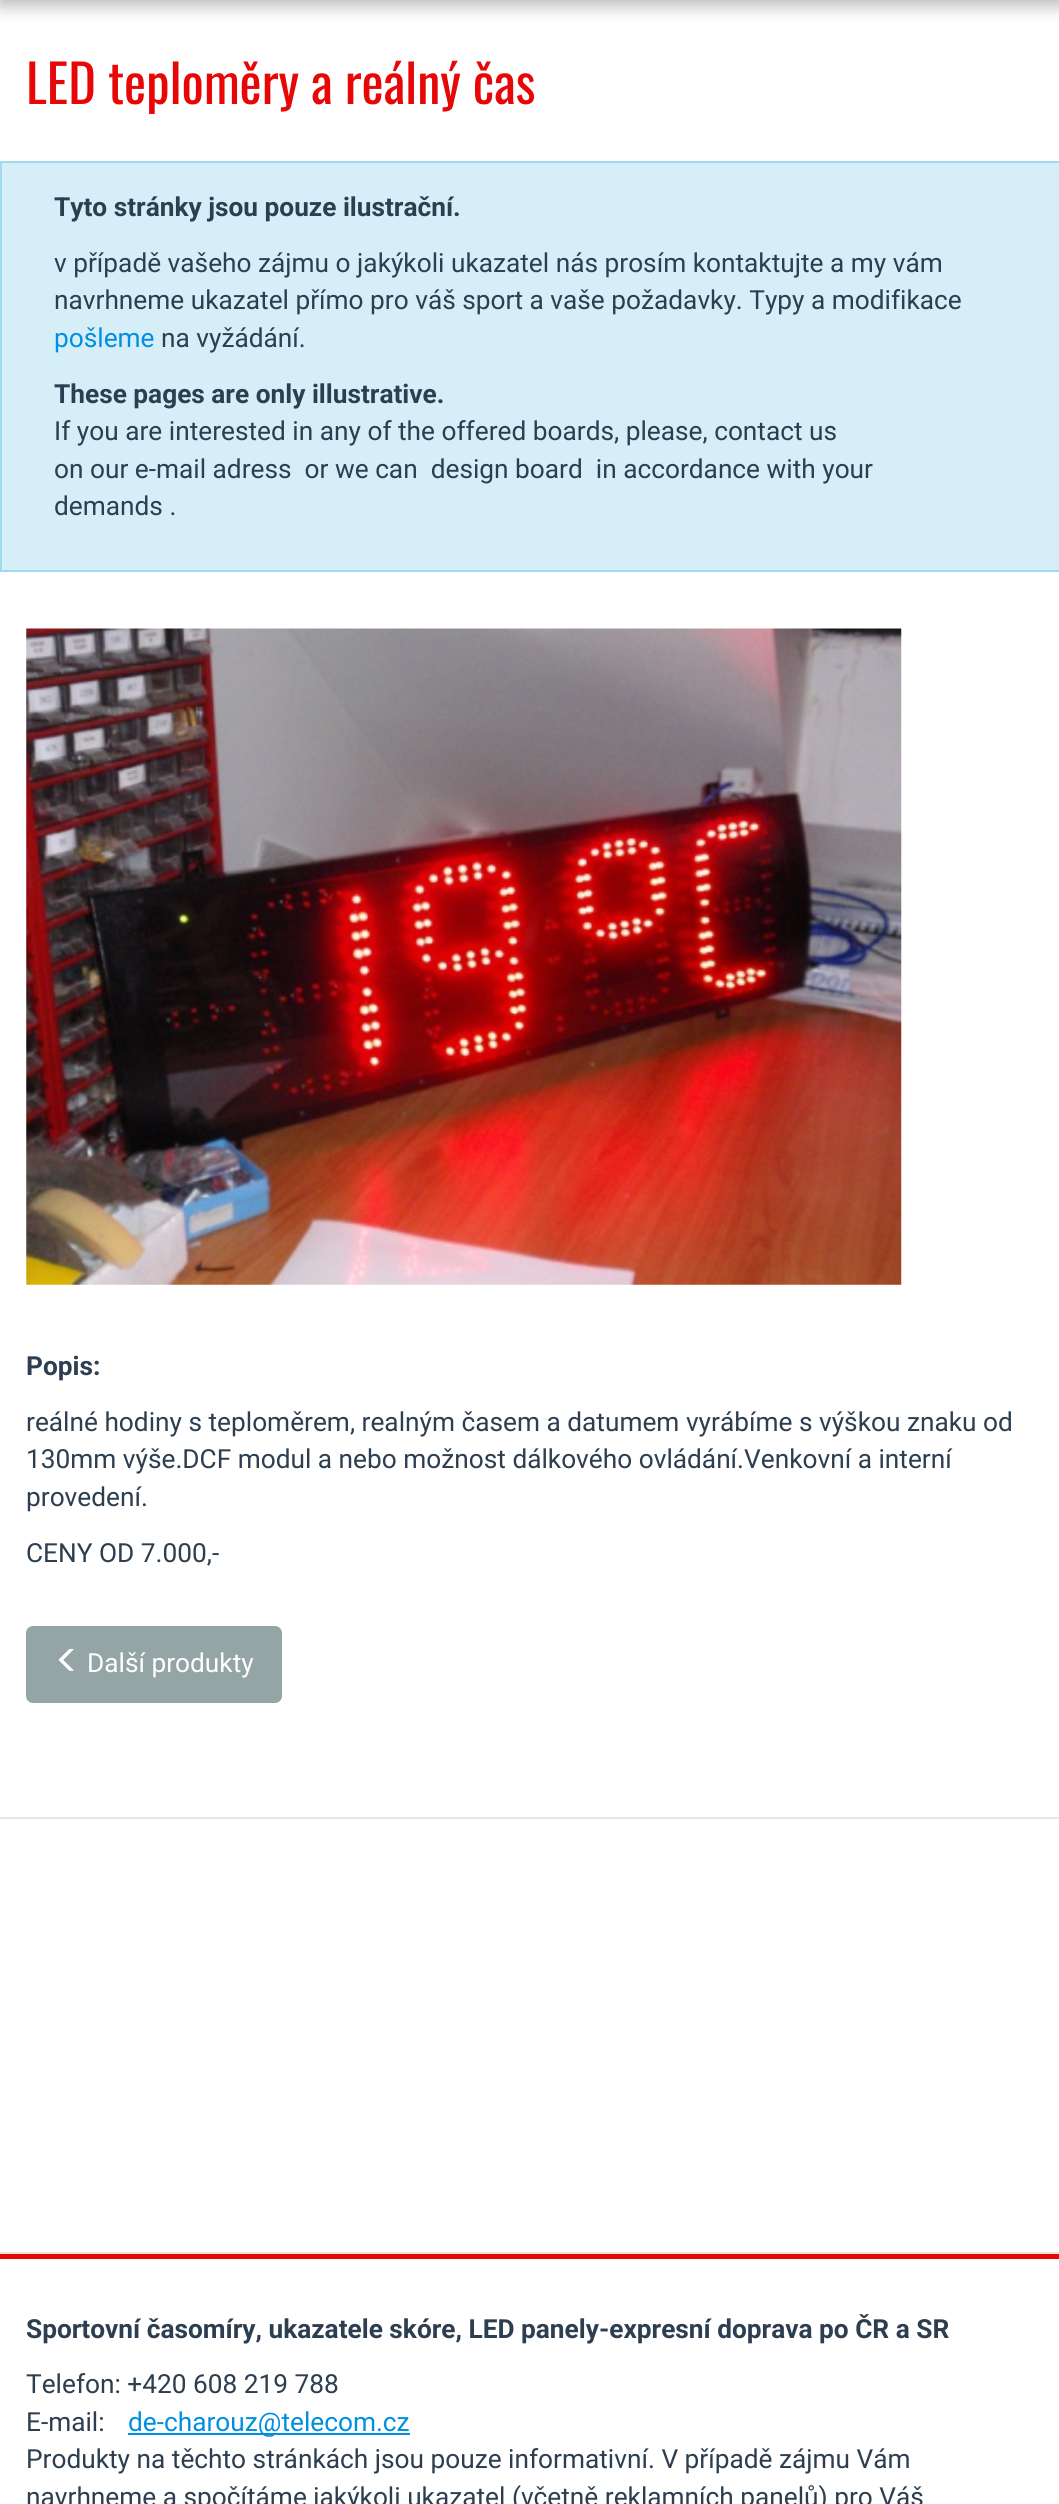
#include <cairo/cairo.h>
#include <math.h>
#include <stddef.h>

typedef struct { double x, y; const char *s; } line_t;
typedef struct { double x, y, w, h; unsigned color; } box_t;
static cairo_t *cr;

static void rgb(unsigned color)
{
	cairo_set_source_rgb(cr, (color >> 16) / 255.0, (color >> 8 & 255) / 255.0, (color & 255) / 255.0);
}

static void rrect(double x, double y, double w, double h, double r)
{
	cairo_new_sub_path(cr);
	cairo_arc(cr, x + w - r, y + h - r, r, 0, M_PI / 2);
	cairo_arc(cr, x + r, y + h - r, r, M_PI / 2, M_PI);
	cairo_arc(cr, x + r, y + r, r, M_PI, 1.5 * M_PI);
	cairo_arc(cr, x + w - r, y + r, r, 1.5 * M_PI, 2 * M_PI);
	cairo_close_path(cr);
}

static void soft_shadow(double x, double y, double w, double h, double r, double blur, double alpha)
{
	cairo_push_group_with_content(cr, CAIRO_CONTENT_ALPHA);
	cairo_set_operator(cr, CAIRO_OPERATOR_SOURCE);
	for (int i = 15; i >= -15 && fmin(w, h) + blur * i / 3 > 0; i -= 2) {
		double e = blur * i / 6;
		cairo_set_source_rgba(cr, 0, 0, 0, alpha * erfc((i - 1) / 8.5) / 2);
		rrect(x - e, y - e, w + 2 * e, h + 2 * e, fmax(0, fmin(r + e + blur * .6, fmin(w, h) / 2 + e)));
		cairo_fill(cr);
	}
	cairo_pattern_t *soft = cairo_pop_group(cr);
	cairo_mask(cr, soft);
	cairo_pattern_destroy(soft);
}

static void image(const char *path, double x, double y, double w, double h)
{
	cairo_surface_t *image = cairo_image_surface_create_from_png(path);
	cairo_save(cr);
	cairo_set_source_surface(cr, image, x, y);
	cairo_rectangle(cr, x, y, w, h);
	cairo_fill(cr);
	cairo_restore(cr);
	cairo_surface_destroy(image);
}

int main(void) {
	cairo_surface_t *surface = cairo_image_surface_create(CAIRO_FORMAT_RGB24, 1059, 2504);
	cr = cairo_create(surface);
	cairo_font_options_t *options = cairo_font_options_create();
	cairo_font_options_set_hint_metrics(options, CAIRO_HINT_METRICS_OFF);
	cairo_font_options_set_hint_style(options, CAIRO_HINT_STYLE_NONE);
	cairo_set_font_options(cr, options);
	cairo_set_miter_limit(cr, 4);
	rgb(0xffffff);
	cairo_paint(cr);
	rgb(0x000000);
	soft_shadow(0, -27, 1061, 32, 0, 9, 0.3);
	rgb(0xd6eef7);
	cairo_rectangle(cr, 1, 162, 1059, 409);
	cairo_fill_preserve(cr);
	rgb(0x9fdaef);
	cairo_stroke(cr);
	image("img/1.png", 26, 628, 876, 657);
	rgb(0x95a5a6);
	rrect(27, 1627, 254, 75, 6);
	cairo_fill_preserve(cr);
	cairo_stroke(cr);
	image("img/2.png", 58, 1649, 16, 22);
	{
		static const box_t items[] = {
			{0, 1817, 1059, 2, 0xe9e5dc},
			{0, 2252, 1059, 2, 0xe9e5dc},
			{0, 2254, 1059, 5, 0xe70707},
			{128, 2433, 282, 2, 0x008fe0},
		};
		for (size_t i = 0; i < sizeof items / sizeof *items; i++) {
			rgb(items[i].color);
			cairo_rectangle(cr, items[i].x, items[i].y, items[i].w, items[i].h);
			cairo_fill(cr);
		}
	}
	cairo_select_font_face(cr, "Oswald", CAIRO_FONT_SLANT_NORMAL, CAIRO_FONT_WEIGHT_NORMAL);
	cairo_set_font_size(cr, 52.5);
	rgb(0xe70707);
	cairo_move_to(cr, 26, 104);
	cairo_show_text(cr, "LED teploměry a reálný čas");
	cairo_select_font_face(cr, "Roboto", CAIRO_FONT_SLANT_NORMAL, CAIRO_FONT_WEIGHT_BOLD);
	cairo_set_font_size(cr, 26.25);
	rgb(0x2c3e50);
	cairo_move_to(cr, 54, 216);
	cairo_show_text(cr, "Tyto stránky jsou pouze ilustrační.");
	cairo_select_font_face(cr, "Roboto", CAIRO_FONT_SLANT_NORMAL, CAIRO_FONT_WEIGHT_NORMAL);
	cairo_move_to(cr, 54, 272);
	cairo_show_text(cr, "v případě vašeho zájmu o jakýkoli ukazatel nás prosím kontaktujte a my vám");
	cairo_move_to(cr, 54, 309);
	cairo_show_text(cr, "navrhneme ukazatel přímo pro váš sport a vaše požadavky. Typy a modifikace");
	rgb(0x008fe0);
	cairo_move_to(cr, 54, 347);
	cairo_show_text(cr, "pošleme");
	rgb(0x2c3e50);
	cairo_move_to(cr, 161, 347);
	cairo_show_text(cr, "na vyžádání.");
	cairo_select_font_face(cr, "Roboto", CAIRO_FONT_SLANT_NORMAL, CAIRO_FONT_WEIGHT_BOLD);
	cairo_move_to(cr, 54, 403);
	cairo_show_text(cr, "These pages are only illustrative.");
	cairo_select_font_face(cr, "Roboto", CAIRO_FONT_SLANT_NORMAL, CAIRO_FONT_WEIGHT_NORMAL);
	{
		static const line_t items[] = {
			{54, 440, "If you are interested in any of the offered boards, please, contact us"},
			{54, 478, "on our e-mail adress  or we can  design board  in accordance with your"},
			{54, 515, "demands ."},
		};
		for (size_t i = 0; i < sizeof items / sizeof *items; i++) {
			cairo_move_to(cr, items[i].x, items[i].y);
			cairo_show_text(cr, items[i].s);
		}
	}
	cairo_select_font_face(cr, "Roboto", CAIRO_FONT_SLANT_NORMAL, CAIRO_FONT_WEIGHT_BOLD);
	cairo_move_to(cr, 26, 1375);
	cairo_show_text(cr, "Popis:");
	cairo_select_font_face(cr, "Roboto", CAIRO_FONT_SLANT_NORMAL, CAIRO_FONT_WEIGHT_NORMAL);
	{
		static const line_t items[] = {
			{26, 1431, "reálné hodiny s teploměrem, realným časem a datumem vyrábíme s výškou znaku od"},
			{26, 1468, "130mm výše.DCF modul a nebo možnost dálkového ovládání.Venkovní a interní"},
			{26, 1506, "provedení."},
			{26, 1562, "CENY OD 7.000,-"},
		};
		for (size_t i = 0; i < sizeof items / sizeof *items; i++) {
			cairo_move_to(cr, items[i].x, items[i].y);
			cairo_show_text(cr, items[i].s);
		}
	}
	rgb(0xffffff);
	cairo_move_to(cr, 87, 1672);
	cairo_show_text(cr, "Další produkty");
	cairo_select_font_face(cr, "Roboto", CAIRO_FONT_SLANT_NORMAL, CAIRO_FONT_WEIGHT_BOLD);
	rgb(0x2c3e50);
	cairo_move_to(cr, 26, 2338);
	cairo_show_text(cr, "Sportovní časomíry, ukazatele skóre, LED panely-expresní doprava po ČR a SR");
	cairo_select_font_face(cr, "Roboto", CAIRO_FONT_SLANT_NORMAL, CAIRO_FONT_WEIGHT_NORMAL);
	cairo_move_to(cr, 26, 2393);
	cairo_show_text(cr, "Telefon: +420 608 219 788");
	cairo_move_to(cr, 26, 2431);
	cairo_show_text(cr, "E-mail:");
	rgb(0x008fe0);
	cairo_move_to(cr, 128, 2431);
	cairo_show_text(cr, "de-charouz@telecom.cz");
	rgb(0x2c3e50);
	cairo_move_to(cr, 26, 2468);
	cairo_show_text(cr, "Produkty na těchto stránkách jsou pouze informativní. V případě zájmu Vám");
	cairo_move_to(cr, 26, 2506);
	cairo_show_text(cr, "navrhneme a spočítáme jakýkoli ukazatel (včetně reklamních panelů) pro Váš");
	cairo_surface_write_to_png(surface, "page.png");
	cairo_font_options_destroy(options);
	cairo_destroy(cr);
	cairo_surface_destroy(surface);
	return 0;
}
